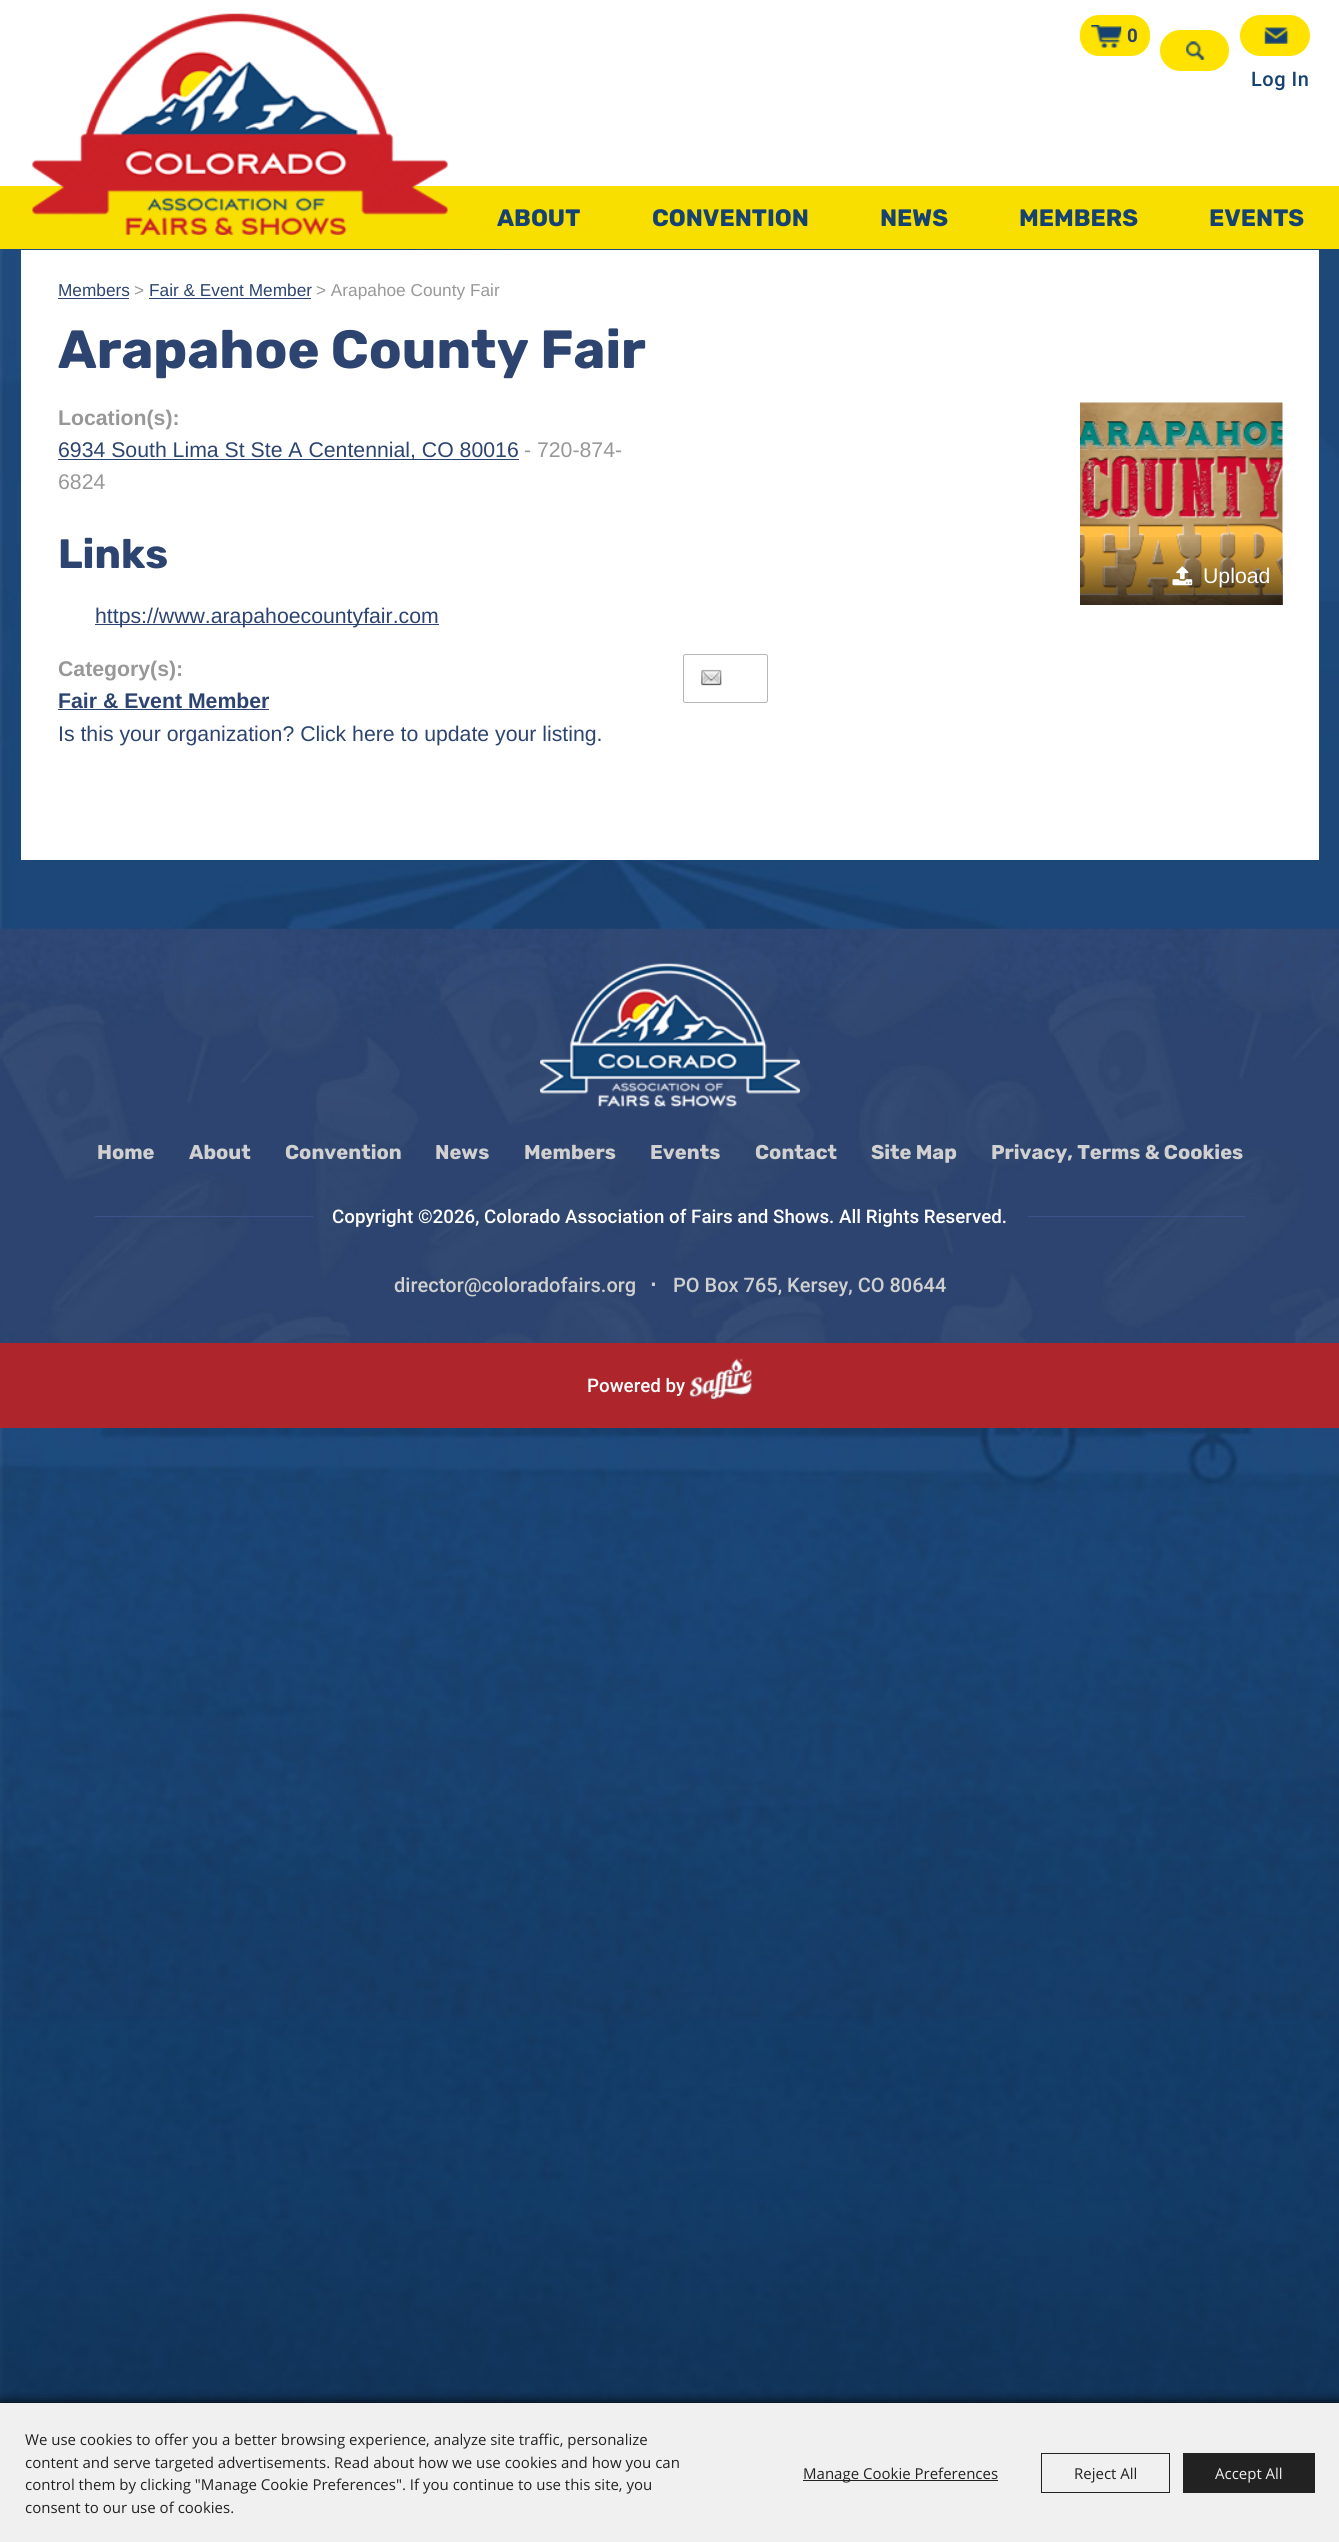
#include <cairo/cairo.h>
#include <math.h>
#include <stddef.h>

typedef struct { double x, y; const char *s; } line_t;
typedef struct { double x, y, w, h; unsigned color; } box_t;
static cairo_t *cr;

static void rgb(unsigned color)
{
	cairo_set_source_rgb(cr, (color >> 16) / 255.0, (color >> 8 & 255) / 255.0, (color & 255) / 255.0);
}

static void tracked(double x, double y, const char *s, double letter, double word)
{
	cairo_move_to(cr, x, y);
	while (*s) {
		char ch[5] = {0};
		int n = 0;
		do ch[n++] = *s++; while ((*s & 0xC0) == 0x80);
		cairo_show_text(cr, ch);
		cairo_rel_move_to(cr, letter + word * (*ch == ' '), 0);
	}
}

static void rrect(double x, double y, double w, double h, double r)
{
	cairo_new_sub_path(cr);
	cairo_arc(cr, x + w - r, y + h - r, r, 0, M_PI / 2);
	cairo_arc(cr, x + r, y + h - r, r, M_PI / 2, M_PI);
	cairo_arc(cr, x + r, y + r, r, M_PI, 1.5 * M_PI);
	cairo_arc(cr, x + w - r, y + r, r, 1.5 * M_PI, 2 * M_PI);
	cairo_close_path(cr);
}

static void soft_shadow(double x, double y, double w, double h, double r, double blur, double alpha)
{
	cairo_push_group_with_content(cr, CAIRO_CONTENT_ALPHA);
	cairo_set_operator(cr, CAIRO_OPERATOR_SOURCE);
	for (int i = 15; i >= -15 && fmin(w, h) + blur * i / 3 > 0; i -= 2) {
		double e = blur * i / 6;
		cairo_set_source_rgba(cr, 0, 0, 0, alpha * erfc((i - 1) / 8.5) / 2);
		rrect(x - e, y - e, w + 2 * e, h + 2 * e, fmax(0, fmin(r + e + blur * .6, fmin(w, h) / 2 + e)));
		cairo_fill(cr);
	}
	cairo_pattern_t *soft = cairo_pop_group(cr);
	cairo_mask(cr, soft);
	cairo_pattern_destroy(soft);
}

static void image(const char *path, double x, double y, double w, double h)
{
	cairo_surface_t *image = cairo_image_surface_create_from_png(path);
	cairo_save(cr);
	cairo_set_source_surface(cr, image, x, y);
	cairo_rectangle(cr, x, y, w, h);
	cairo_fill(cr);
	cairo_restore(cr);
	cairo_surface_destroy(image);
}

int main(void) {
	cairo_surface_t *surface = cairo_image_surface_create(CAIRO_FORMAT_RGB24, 1339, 2542);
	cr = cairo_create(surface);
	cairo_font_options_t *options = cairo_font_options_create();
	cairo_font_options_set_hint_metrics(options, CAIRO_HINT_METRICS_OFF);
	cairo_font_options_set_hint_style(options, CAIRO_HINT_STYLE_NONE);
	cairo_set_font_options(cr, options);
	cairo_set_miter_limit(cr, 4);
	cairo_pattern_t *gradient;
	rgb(0xffffff);
	cairo_paint(cr);
	image("img/1.png", 0, 249, 1339, 2154);
	rgb(0xf8df00);
	cairo_rectangle(cr, 0, 186, 1339, 63);
	cairo_fill(cr);
	image("img/2.png", 32, 13, 416, 222);
	rgb(0xffe200);
	rrect(1080, 15, 70, 41, 19);
	cairo_fill(cr);
	image("img/3.png", 1091, 25, 31, 23);
	rrect(1160, 30, 69, 41, 20.5);
	cairo_fill(cr);
	image("img/4.png", 1186, 41, 19, 19);
	rrect(1240, 15, 70, 41, 20.5);
	cairo_fill(cr);
	image("img/5.png", 1264, 27, 25, 17);
	{
		static const box_t items[] = {
			{21, 250, 1298, 610, 0xffffff},
			{58, 298, 71, 1, 0x2c446f},
			{149, 298, 162, 1, 0x2c446f},
			{58, 459, 461, 1, 0x2c446f},
			{95, 624, 344, 1, 0x2c446f},
		};
		for (size_t i = 0; i < sizeof items / sizeof *items; i++) {
			rgb(items[i].color);
			cairo_rectangle(cr, items[i].x, items[i].y, items[i].w, items[i].h);
			cairo_fill(cr);
		}
	}
	image("img/6.png", 1080, 402, 203, 203);
	gradient = cairo_pattern_create_linear(1181, 403, 1181, 605);
	cairo_pattern_add_color_stop_rgba(gradient, 0.65, 0, 0, 0, 0);
	cairo_pattern_add_color_stop_rgba(gradient, 1, 0, 0, 0, 0.65);
	cairo_set_source(cr, gradient);
	cairo_pattern_destroy(gradient);
	cairo_rectangle(cr, 1080, 537, 203, 68);
	cairo_fill(cr);
	image("img/7.png", 1172, 566, 21, 20);
	rgb(0x2c446f);
	cairo_rectangle(cr, 58, 709, 211, 1);
	cairo_fill(cr);
	rrect(683.5, 654.5, 84, 48, 2);
	rgb(0xb6b6b6);
	cairo_set_line_width(cr, 1);
	cairo_stroke(cr);
	image("img/8.png", 701, 669, 21, 17);
	image("img/9.png", 0, 928, 1339, 415);
	image("img/10.png", 540, 963, 260, 144);
	{
		static const box_t items[] = {
			{95, 1216, 218, 1, 0x3c528b},
			{1028, 1216, 217, 1, 0x3c528b},
			{0, 1343, 1339, 85, 0xae262b},
		};
		for (size_t i = 0; i < sizeof items / sizeof *items; i++) {
			rgb(items[i].color);
			cairo_rectangle(cr, items[i].x, items[i].y, items[i].w, items[i].h);
			cairo_fill(cr);
		}
	}
	image("img/11.png", 689, 1358, 63, 43);
	rgb(0x000000);
	soft_shadow(-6, 2403, 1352, 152, 0, 6, 1);
	rgb(0xf0f0f0);
	cairo_rectangle(cr, 0, 2403, 1339, 139);
	cairo_fill(cr);
	rgb(0x222222);
	cairo_rectangle(cr, 803, 2480, 195, 1);
	cairo_fill(cr);
	cairo_rectangle(cr, 1041.5, 2453.5, 128, 39);
	cairo_stroke(cr);
	cairo_rectangle(cr, 1183, 2453, 132, 40);
	cairo_fill(cr);
	cairo_select_font_face(cr, "Roboto", CAIRO_FONT_SLANT_NORMAL, CAIRO_FONT_WEIGHT_BOLD);
	cairo_set_font_size(cr, 18.75);
	rgb(0x2c446f);
	cairo_move_to(cr, 1127, 42);
	cairo_show_text(cr, "0");
	cairo_select_font_face(cr, "Roboto Medium", CAIRO_FONT_SLANT_NORMAL, CAIRO_FONT_WEIGHT_NORMAL);
	cairo_set_font_size(cr, 20);
	rgb(0x154271);
	tracked(1251, 86, "Log In", 0.5, 0);
	cairo_select_font_face(cr, "Rubik", CAIRO_FONT_SLANT_NORMAL, CAIRO_FONT_WEIGHT_BOLD);
	cairo_set_font_size(cr, 23.75);
	{
		static const line_t items[] = {
			{497, 226, "ABOUT"},
			{652, 226, "CONVENTION"},
			{880, 226, "NEWS"},
			{1019, 226, "MEMBERS"},
			{1209, 226, "EVENTS"},
		};
		for (size_t i = 0; i < sizeof items / sizeof *items; i++) {
			cairo_move_to(cr, items[i].x, items[i].y);
			cairo_show_text(cr, items[i].s);
		}
	}
	cairo_select_font_face(cr, "Liberation Sans", CAIRO_FONT_SLANT_NORMAL, CAIRO_FONT_WEIGHT_NORMAL);
	cairo_set_font_size(cr, 17.25);
	rgb(0x2c446f);
	cairo_move_to(cr, 58, 296);
	cairo_show_text(cr, "Members");
	rgb(0x999898);
	cairo_move_to(cr, 134, 296);
	cairo_show_text(cr, ">");
	rgb(0x2c446f);
	cairo_move_to(cr, 149, 296);
	cairo_show_text(cr, "Fair & Event Member");
	rgb(0x999898);
	cairo_move_to(cr, 316, 296);
	cairo_show_text(cr, "> Arapahoe County Fair");
	cairo_select_font_face(cr, "Rubik", CAIRO_FONT_SLANT_NORMAL, CAIRO_FONT_WEIGHT_BOLD);
	cairo_set_font_size(cr, 53.75);
	rgb(0x2c446f);
	cairo_move_to(cr, 58, 368);
	cairo_show_text(cr, "Arapahoe County Fair");
	cairo_select_font_face(cr, "Liberation Sans", CAIRO_FONT_SLANT_NORMAL, CAIRO_FONT_WEIGHT_BOLD);
	cairo_set_font_size(cr, 21.25);
	rgb(0x999898);
	cairo_move_to(cr, 58, 425);
	cairo_show_text(cr, "Location(s):");
	cairo_select_font_face(cr, "Liberation Sans", CAIRO_FONT_SLANT_NORMAL, CAIRO_FONT_WEIGHT_NORMAL);
	rgb(0x2c446f);
	cairo_move_to(cr, 58, 457);
	cairo_show_text(cr, "6934 South Lima St Ste A Centennial, CO 80016");
	rgb(0x999898);
	cairo_move_to(cr, 524, 457);
	cairo_show_text(cr, "- 720-874-");
	cairo_move_to(cr, 58, 489);
	cairo_show_text(cr, "6824");
	cairo_select_font_face(cr, "Rubik", CAIRO_FONT_SLANT_NORMAL, CAIRO_FONT_WEIGHT_BOLD);
	cairo_set_font_size(cr, 41);
	rgb(0x2c446f);
	cairo_move_to(cr, 58, 568);
	cairo_show_text(cr, "Links");
	cairo_select_font_face(cr, "Liberation Sans", CAIRO_FONT_SLANT_NORMAL, CAIRO_FONT_WEIGHT_NORMAL);
	cairo_set_font_size(cr, 21.25);
	cairo_move_to(cr, 95, 623);
	cairo_show_text(cr, "https://www.arapahoecountyfair.com");
	rgb(0xffffff);
	cairo_move_to(cr, 1203, 583);
	cairo_show_text(cr, "Upload");
	cairo_select_font_face(cr, "Liberation Sans", CAIRO_FONT_SLANT_NORMAL, CAIRO_FONT_WEIGHT_BOLD);
	rgb(0x999898);
	cairo_move_to(cr, 58, 676);
	cairo_show_text(cr, "Category(s):");
	rgb(0x2c446f);
	cairo_move_to(cr, 58, 708);
	cairo_show_text(cr, "Fair & Event Member");
	cairo_select_font_face(cr, "Liberation Sans", CAIRO_FONT_SLANT_NORMAL, CAIRO_FONT_WEIGHT_NORMAL);
	cairo_move_to(cr, 58, 741);
	cairo_show_text(cr, "Is this your organization? Click here to update your listing.");
	cairo_select_font_face(cr, "Rubik", CAIRO_FONT_SLANT_NORMAL, CAIRO_FONT_WEIGHT_BOLD);
	cairo_set_font_size(cr, 20);
	rgb(0xd0d0d0);
	{
		static const line_t items[] = {
			{97, 1159, "Home"},
			{189, 1159, "About"},
			{285, 1159, "Convention"},
			{435, 1159, "News"},
			{524, 1159, "Members"},
			{650, 1159, "Events"},
			{755, 1159, "Contact"},
			{871, 1159, "Site Map"},
			{991, 1159, "Privacy, Terms & Cookies"},
		};
		for (size_t i = 0; i < sizeof items / sizeof *items; i++) {
			cairo_move_to(cr, items[i].x, items[i].y);
			cairo_show_text(cr, items[i].s);
		}
	}
	cairo_select_font_face(cr, "Roboto Medium", CAIRO_FONT_SLANT_NORMAL, CAIRO_FONT_WEIGHT_NORMAL);
	cairo_set_font_size(cr, 18.75);
	rgb(0xffffff);
	cairo_move_to(cr, 332, 1223);
	cairo_show_text(cr, "Copyright ©2026, Colorado Association of Fairs and Shows. All Rights Reserved.");
	cairo_set_font_size(cr, 20);
	rgb(0xd0d0d0);
	cairo_move_to(cr, 394, 1292);
	cairo_show_text(cr, "director@coloradofairs.org");
	cairo_select_font_face(cr, "Liberation Sans", CAIRO_FONT_SLANT_NORMAL, CAIRO_FONT_WEIGHT_NORMAL);
	cairo_set_font_size(cr, 32);
	cairo_move_to(cr, 649, 1286);
	cairo_show_text(cr, ".");
	cairo_select_font_face(cr, "Roboto Medium", CAIRO_FONT_SLANT_NORMAL, CAIRO_FONT_WEIGHT_NORMAL);
	cairo_set_font_size(cr, 20);
	cairo_move_to(cr, 673, 1292);
	cairo_show_text(cr, "PO Box 765, Kersey, CO 80644");
	cairo_set_font_size(cr, 18.75);
	rgb(0xffffff);
	cairo_move_to(cr, 587, 1392);
	cairo_show_text(cr, "Powered by");
	cairo_select_font_face(cr, "Open Sans", CAIRO_FONT_SLANT_NORMAL, CAIRO_FONT_WEIGHT_NORMAL);
	cairo_set_font_size(cr, 15);
	rgb(0x222222);
	{
		static const line_t items[] = {
			{25, 2445, "We use cookies to offer you a better browsing experience, analyze site traffic, personalize"},
			{25, 2468, "content and serve targeted advertisements. Read about how we use cookies and how you can"},
			{25, 2490, "control them by clicking \"Manage Cookie Preferences\". If you continue to use this site, you"},
			{25, 2513, "consent to our use of cookies."},
			{803, 2479, "Manage Cookie Preferences"},
			{1074, 2479, "Reject All"},
		};
		for (size_t i = 0; i < sizeof items / sizeof *items; i++) {
			cairo_move_to(cr, items[i].x, items[i].y);
			cairo_show_text(cr, items[i].s);
		}
	}
	rgb(0xf0f0f0);
	cairo_move_to(cr, 1215, 2479);
	cairo_show_text(cr, "Accept All");
	cairo_surface_write_to_png(surface, "page.png");
	cairo_font_options_destroy(options);
	cairo_destroy(cr);
	cairo_surface_destroy(surface);
	return 0;
}
